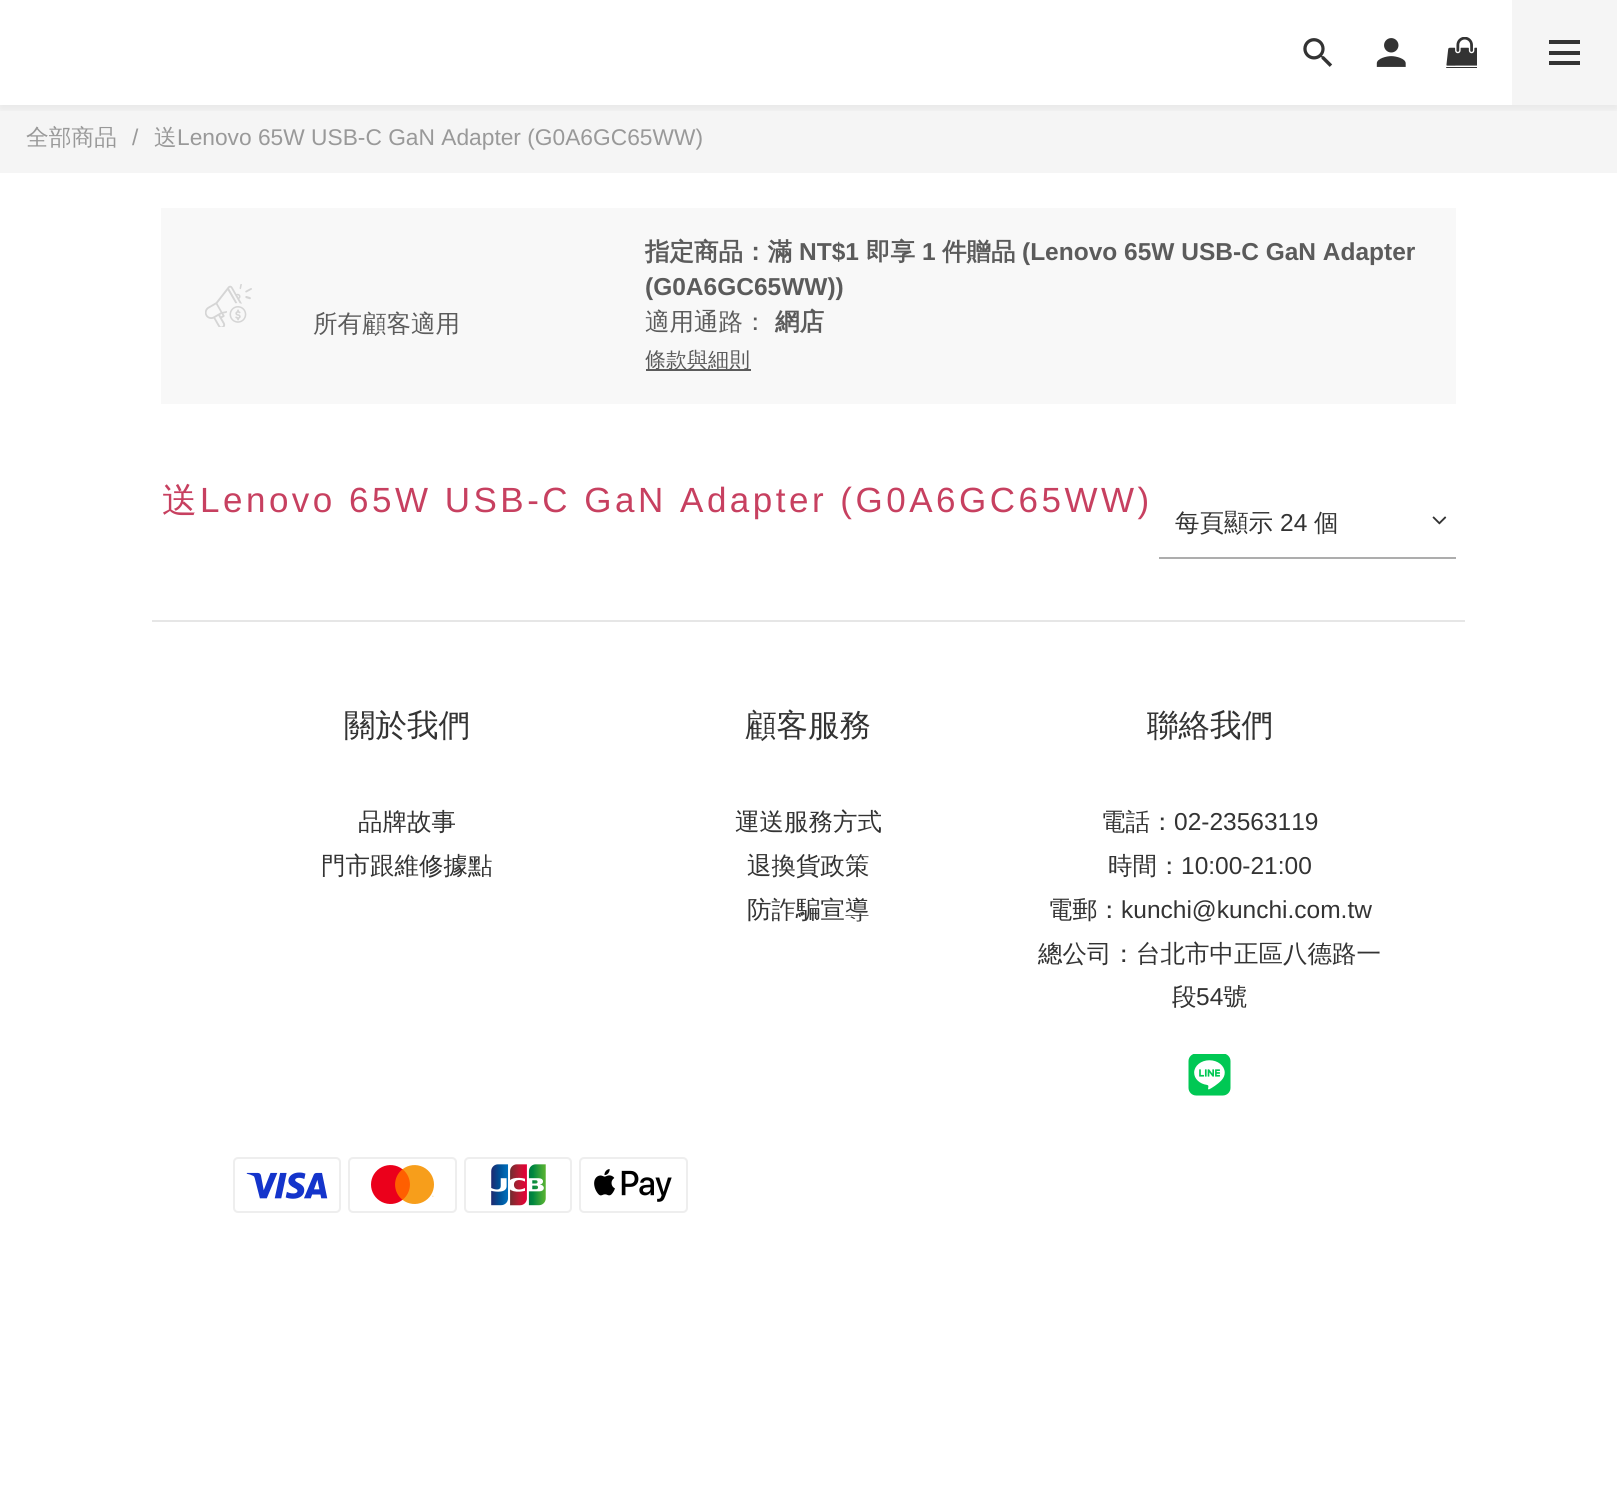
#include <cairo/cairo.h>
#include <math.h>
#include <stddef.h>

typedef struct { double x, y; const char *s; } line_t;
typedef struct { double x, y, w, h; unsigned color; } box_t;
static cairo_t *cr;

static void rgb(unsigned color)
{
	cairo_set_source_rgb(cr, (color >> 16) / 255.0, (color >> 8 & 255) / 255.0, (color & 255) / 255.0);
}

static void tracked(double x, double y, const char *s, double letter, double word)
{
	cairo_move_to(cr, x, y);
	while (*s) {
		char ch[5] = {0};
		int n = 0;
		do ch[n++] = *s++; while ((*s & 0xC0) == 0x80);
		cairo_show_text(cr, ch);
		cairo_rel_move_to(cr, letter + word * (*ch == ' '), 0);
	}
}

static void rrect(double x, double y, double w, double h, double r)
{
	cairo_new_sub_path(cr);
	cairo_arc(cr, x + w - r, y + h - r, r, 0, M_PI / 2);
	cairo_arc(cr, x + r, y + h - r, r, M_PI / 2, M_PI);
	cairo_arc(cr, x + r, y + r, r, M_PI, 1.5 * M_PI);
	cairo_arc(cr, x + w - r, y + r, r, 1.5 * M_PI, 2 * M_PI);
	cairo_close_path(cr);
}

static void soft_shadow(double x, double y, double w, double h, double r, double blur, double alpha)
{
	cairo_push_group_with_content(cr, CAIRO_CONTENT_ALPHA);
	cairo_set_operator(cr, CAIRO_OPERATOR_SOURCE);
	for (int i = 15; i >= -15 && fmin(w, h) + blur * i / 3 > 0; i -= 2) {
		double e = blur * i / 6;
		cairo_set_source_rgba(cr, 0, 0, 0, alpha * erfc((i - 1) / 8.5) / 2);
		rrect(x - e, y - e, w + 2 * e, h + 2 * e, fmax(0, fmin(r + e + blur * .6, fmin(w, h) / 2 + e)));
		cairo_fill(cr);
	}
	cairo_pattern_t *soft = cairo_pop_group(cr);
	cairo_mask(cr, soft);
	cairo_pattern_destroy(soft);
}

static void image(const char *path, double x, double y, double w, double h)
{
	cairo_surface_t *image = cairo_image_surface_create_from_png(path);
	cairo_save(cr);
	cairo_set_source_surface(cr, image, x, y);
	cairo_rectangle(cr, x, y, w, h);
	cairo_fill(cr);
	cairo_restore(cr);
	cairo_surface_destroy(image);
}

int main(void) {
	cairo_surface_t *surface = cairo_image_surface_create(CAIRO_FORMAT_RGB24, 1617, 1502);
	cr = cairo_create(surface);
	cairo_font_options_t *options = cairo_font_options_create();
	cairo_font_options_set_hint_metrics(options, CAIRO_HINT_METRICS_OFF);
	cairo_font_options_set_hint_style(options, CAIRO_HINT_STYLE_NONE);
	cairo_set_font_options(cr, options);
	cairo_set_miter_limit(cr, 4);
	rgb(0xffffff);
	cairo_paint(cr);
	rgb(0xf5f5f5);
	cairo_rectangle(cr, 0, 105, 1617, 68);
	cairo_fill(cr);
	cairo_save(cr);
	cairo_rectangle(cr, 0, 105, 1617, 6);
	cairo_clip(cr);
	rgb(0x000000);
	soft_shadow(0, 4, 1617, 105, 0, 5, 0.06);
	cairo_restore(cr);
	image("img/1.png", 1303, 38, 30, 29);
	image("img/2.png", 1376, 38, 30, 29);
	image("img/3.png", 1446, 37, 31, 31);
	{
		static const box_t items[] = {
			{1512, 0, 105, 105, 0xf5f5f5},
			{1549, 51, 31, 4, 0x333333},
			{1549, 40, 31, 4, 0x333333},
			{1549, 61, 31, 4, 0x333333},
			{161, 208, 1295, 196, 0xf8f8f8},
		};
		for (size_t i = 0; i < sizeof items / sizeof *items; i++) {
			rgb(items[i].color);
			cairo_rectangle(cr, items[i].x, items[i].y, items[i].w, items[i].h);
			cairo_fill(cr);
		}
	}
	image("img/4.png", 205, 284, 47, 43);
	rgb(0x5b5b5b);
	cairo_rectangle(cr, 646, 369, 105, 2);
	cairo_fill(cr);
	rgb(0xadadad);
	cairo_rectangle(cr, 1159, 557, 297, 2);
	cairo_fill(cr);
	image("img/5.png", 1432, 516, 15, 9);
	rgb(0xe6e6e6);
	cairo_rectangle(cr, 152, 620, 1313, 2);
	cairo_fill(cr);
	image("img/6.png", 1188, 1054, 43, 42);
	image("img/7.png", 233, 1157, 108, 56);
	image("img/8.png", 348, 1157, 109, 56);
	image("img/9.png", 464, 1157, 108, 56);
	image("img/10.png", 579, 1157, 109, 56);
	cairo_select_font_face(cr, "WenQuanYi Zen Hei Medium", CAIRO_FONT_SLANT_NORMAL, CAIRO_FONT_WEIGHT_NORMAL);
	cairo_set_font_size(cr, 22.75);
	rgb(0x999999);
	cairo_move_to(cr, 26, 145);
	cairo_show_text(cr, "全部商品");
	cairo_select_font_face(cr, "Liberation Sans", CAIRO_FONT_SLANT_NORMAL, CAIRO_FONT_WEIGHT_NORMAL);
	cairo_move_to(cr, 132, 145);
	cairo_show_text(cr, "/");
	cairo_select_font_face(cr, "WenQuanYi Zen Hei Medium", CAIRO_FONT_SLANT_NORMAL, CAIRO_FONT_WEIGHT_NORMAL);
	cairo_move_to(cr, 154, 145);
	cairo_show_text(cr, "送");
	cairo_select_font_face(cr, "Liberation Sans", CAIRO_FONT_SLANT_NORMAL, CAIRO_FONT_WEIGHT_NORMAL);
	cairo_move_to(cr, 177, 145);
	cairo_show_text(cr, "Lenovo 65W USB-C GaN Adapter (G0A6GC65WW)");
	cairo_select_font_face(cr, "WenQuanYi Zen Hei Medium", CAIRO_FONT_SLANT_NORMAL, CAIRO_FONT_WEIGHT_NORMAL);
	cairo_set_font_size(cr, 24.5);
	rgb(0x5b5b5b);
	cairo_move_to(cr, 313, 332);
	cairo_show_text(cr, "所有顧客適用");
	cairo_select_font_face(cr, "WenQuanYi Zen Hei", CAIRO_FONT_SLANT_NORMAL, CAIRO_FONT_WEIGHT_BOLD);
	cairo_move_to(cr, 645, 260);
	cairo_show_text(cr, "指定商品：滿");
	cairo_select_font_face(cr, "Liberation Sans", CAIRO_FONT_SLANT_NORMAL, CAIRO_FONT_WEIGHT_BOLD);
	cairo_move_to(cr, 799, 260);
	cairo_show_text(cr, "NT$1");
	cairo_select_font_face(cr, "WenQuanYi Zen Hei", CAIRO_FONT_SLANT_NORMAL, CAIRO_FONT_WEIGHT_BOLD);
	cairo_move_to(cr, 866, 260);
	cairo_show_text(cr, "即享");
	cairo_select_font_face(cr, "Liberation Sans", CAIRO_FONT_SLANT_NORMAL, CAIRO_FONT_WEIGHT_BOLD);
	cairo_move_to(cr, 922, 260);
	cairo_show_text(cr, "1");
	cairo_select_font_face(cr, "WenQuanYi Zen Hei", CAIRO_FONT_SLANT_NORMAL, CAIRO_FONT_WEIGHT_BOLD);
	cairo_move_to(cr, 942, 260);
	cairo_show_text(cr, "件贈品");
	cairo_select_font_face(cr, "Liberation Sans", CAIRO_FONT_SLANT_NORMAL, CAIRO_FONT_WEIGHT_BOLD);
	cairo_move_to(cr, 1022, 260);
	cairo_show_text(cr, "(Lenovo 65W USB-C GaN Adapter");
	cairo_move_to(cr, 645, 295);
	cairo_show_text(cr, "(G0A6GC65WW))");
	cairo_select_font_face(cr, "WenQuanYi Zen Hei Medium", CAIRO_FONT_SLANT_NORMAL, CAIRO_FONT_WEIGHT_NORMAL);
	cairo_move_to(cr, 645, 330);
	cairo_show_text(cr, "適用通路：");
	cairo_select_font_face(cr, "WenQuanYi Zen Hei", CAIRO_FONT_SLANT_NORMAL, CAIRO_FONT_WEIGHT_BOLD);
	cairo_move_to(cr, 775, 330);
	cairo_show_text(cr, "網店");
	cairo_select_font_face(cr, "WenQuanYi Zen Hei Medium", CAIRO_FONT_SLANT_NORMAL, CAIRO_FONT_WEIGHT_NORMAL);
	cairo_set_font_size(cr, 21);
	cairo_move_to(cr, 645, 367);
	cairo_show_text(cr, "條款與細則");
	cairo_set_font_size(cr, 35);
	rgb(0xc74060);
	tracked(162, 512, "送", 3.5, 0);
	cairo_select_font_face(cr, "Liberation Sans", CAIRO_FONT_SLANT_NORMAL, CAIRO_FONT_WEIGHT_NORMAL);
	tracked(200, 512, "Lenovo 65W USB-C GaN Adapter (G0A6GC65WW)", 3.5, 0);
	cairo_select_font_face(cr, "WenQuanYi Zen Hei Medium", CAIRO_FONT_SLANT_NORMAL, CAIRO_FONT_WEIGHT_NORMAL);
	cairo_set_font_size(cr, 24.5);
	rgb(0x333333);
	cairo_move_to(cr, 1175, 531);
	cairo_show_text(cr, "每頁顯示");
	cairo_select_font_face(cr, "Liberation Sans", CAIRO_FONT_SLANT_NORMAL, CAIRO_FONT_WEIGHT_NORMAL);
	cairo_move_to(cr, 1280, 531);
	cairo_show_text(cr, "24");
	cairo_select_font_face(cr, "WenQuanYi Zen Hei Medium", CAIRO_FONT_SLANT_NORMAL, CAIRO_FONT_WEIGHT_NORMAL);
	cairo_move_to(cr, 1314, 531);
	cairo_show_text(cr, "個");
	cairo_set_font_size(cr, 31.5);
	cairo_move_to(cr, 344, 736);
	cairo_show_text(cr, "關於我們");
	cairo_set_font_size(cr, 24.5);
	cairo_move_to(cr, 358, 830);
	cairo_show_text(cr, "品牌故事");
	cairo_move_to(cr, 321, 874);
	cairo_show_text(cr, "門市跟維修據點");
	cairo_set_font_size(cr, 31.5);
	cairo_move_to(cr, 745, 736);
	cairo_show_text(cr, "顧客服務");
	cairo_set_font_size(cr, 24.5);
	{
		static const line_t items[] = {
			{735, 830, "運送服務方式"},
			{747, 874, "退換貨政策"},
			{747, 918, "防詐騙宣導"},
		};
		for (size_t i = 0; i < sizeof items / sizeof *items; i++) {
			cairo_move_to(cr, items[i].x, items[i].y);
			cairo_show_text(cr, items[i].s);
		}
	}
	cairo_set_font_size(cr, 31.5);
	cairo_move_to(cr, 1147, 736);
	cairo_show_text(cr, "聯絡我們");
	cairo_set_font_size(cr, 24.5);
	cairo_move_to(cr, 1101, 830);
	cairo_show_text(cr, "電話：");
	cairo_select_font_face(cr, "Liberation Sans", CAIRO_FONT_SLANT_NORMAL, CAIRO_FONT_WEIGHT_NORMAL);
	cairo_move_to(cr, 1174, 830);
	cairo_show_text(cr, "02-23563119");
	cairo_select_font_face(cr, "WenQuanYi Zen Hei Medium", CAIRO_FONT_SLANT_NORMAL, CAIRO_FONT_WEIGHT_NORMAL);
	cairo_move_to(cr, 1108, 874);
	cairo_show_text(cr, "時間：");
	cairo_select_font_face(cr, "Liberation Sans", CAIRO_FONT_SLANT_NORMAL, CAIRO_FONT_WEIGHT_NORMAL);
	cairo_move_to(cr, 1181, 874);
	cairo_show_text(cr, "10:00-21:00");
	cairo_select_font_face(cr, "WenQuanYi Zen Hei Medium", CAIRO_FONT_SLANT_NORMAL, CAIRO_FONT_WEIGHT_NORMAL);
	cairo_move_to(cr, 1048, 918);
	cairo_show_text(cr, "電郵：");
	cairo_select_font_face(cr, "Liberation Sans", CAIRO_FONT_SLANT_NORMAL, CAIRO_FONT_WEIGHT_NORMAL);
	cairo_move_to(cr, 1121, 918);
	cairo_show_text(cr, "kunchi@kunchi.com.tw");
	cairo_select_font_face(cr, "WenQuanYi Zen Hei Medium", CAIRO_FONT_SLANT_NORMAL, CAIRO_FONT_WEIGHT_NORMAL);
	cairo_move_to(cr, 1038, 962);
	cairo_show_text(cr, "總公司：台北市中正區八德路一");
	cairo_move_to(cr, 1172, 1005);
	cairo_show_text(cr, "段");
	cairo_select_font_face(cr, "Liberation Sans", CAIRO_FONT_SLANT_NORMAL, CAIRO_FONT_WEIGHT_NORMAL);
	cairo_move_to(cr, 1196, 1005);
	cairo_show_text(cr, "54");
	cairo_select_font_face(cr, "WenQuanYi Zen Hei Medium", CAIRO_FONT_SLANT_NORMAL, CAIRO_FONT_WEIGHT_NORMAL);
	cairo_move_to(cr, 1223, 1005);
	cairo_show_text(cr, "號");
	cairo_surface_write_to_png(surface, "page.png");
	cairo_font_options_destroy(options);
	cairo_destroy(cr);
	cairo_surface_destroy(surface);
	return 0;
}
